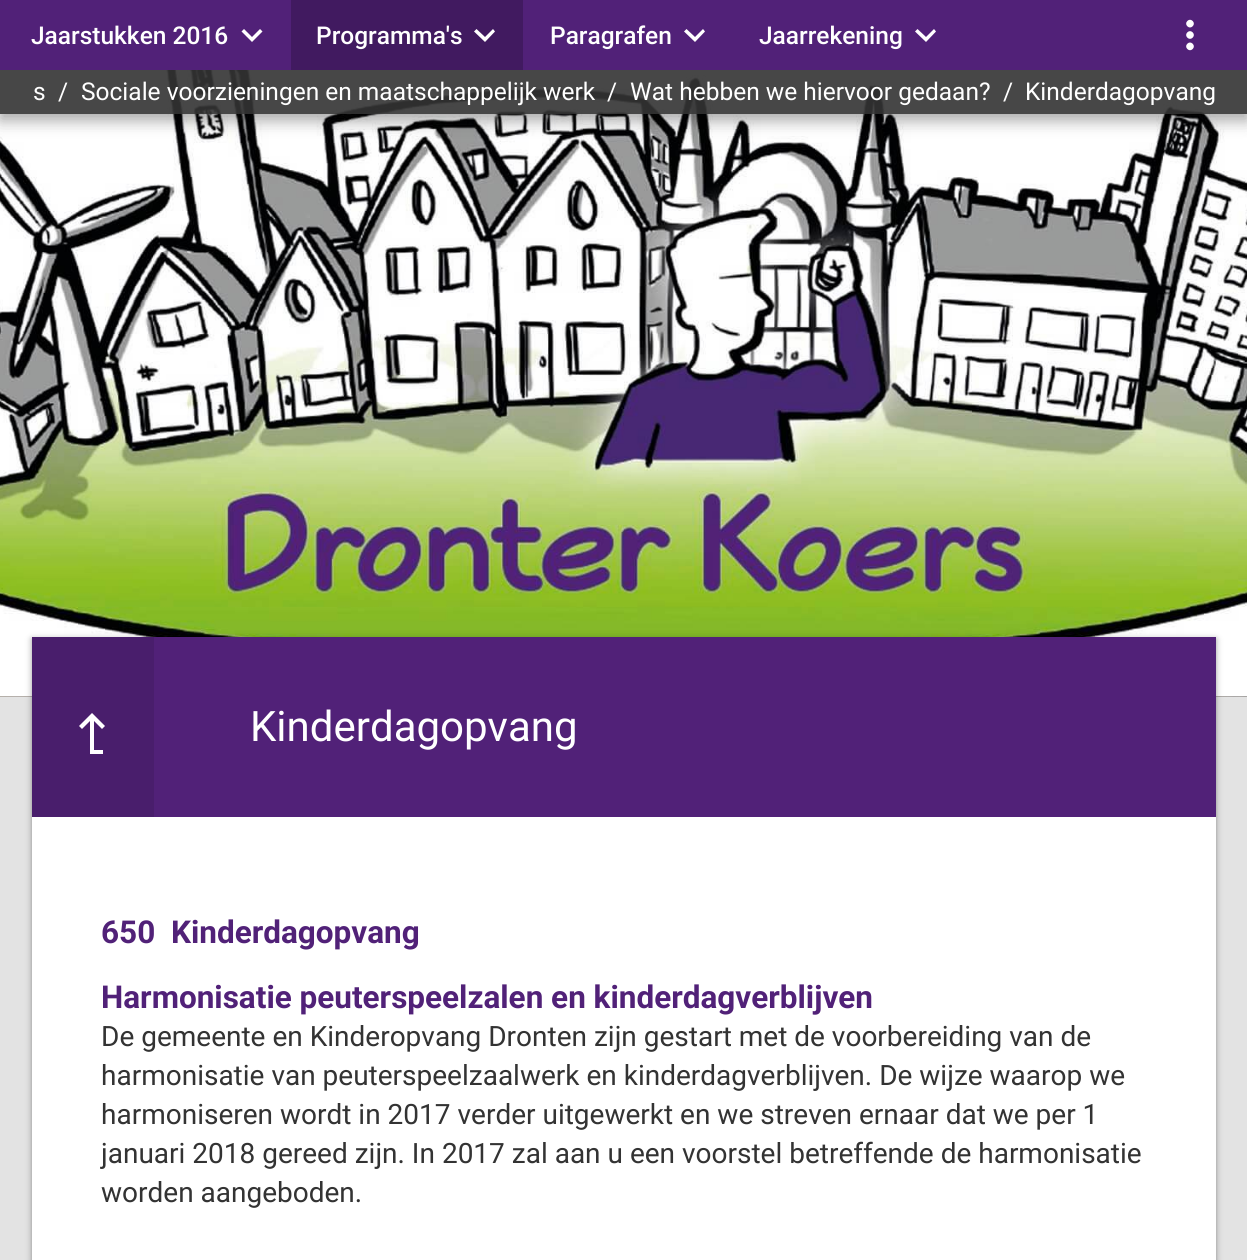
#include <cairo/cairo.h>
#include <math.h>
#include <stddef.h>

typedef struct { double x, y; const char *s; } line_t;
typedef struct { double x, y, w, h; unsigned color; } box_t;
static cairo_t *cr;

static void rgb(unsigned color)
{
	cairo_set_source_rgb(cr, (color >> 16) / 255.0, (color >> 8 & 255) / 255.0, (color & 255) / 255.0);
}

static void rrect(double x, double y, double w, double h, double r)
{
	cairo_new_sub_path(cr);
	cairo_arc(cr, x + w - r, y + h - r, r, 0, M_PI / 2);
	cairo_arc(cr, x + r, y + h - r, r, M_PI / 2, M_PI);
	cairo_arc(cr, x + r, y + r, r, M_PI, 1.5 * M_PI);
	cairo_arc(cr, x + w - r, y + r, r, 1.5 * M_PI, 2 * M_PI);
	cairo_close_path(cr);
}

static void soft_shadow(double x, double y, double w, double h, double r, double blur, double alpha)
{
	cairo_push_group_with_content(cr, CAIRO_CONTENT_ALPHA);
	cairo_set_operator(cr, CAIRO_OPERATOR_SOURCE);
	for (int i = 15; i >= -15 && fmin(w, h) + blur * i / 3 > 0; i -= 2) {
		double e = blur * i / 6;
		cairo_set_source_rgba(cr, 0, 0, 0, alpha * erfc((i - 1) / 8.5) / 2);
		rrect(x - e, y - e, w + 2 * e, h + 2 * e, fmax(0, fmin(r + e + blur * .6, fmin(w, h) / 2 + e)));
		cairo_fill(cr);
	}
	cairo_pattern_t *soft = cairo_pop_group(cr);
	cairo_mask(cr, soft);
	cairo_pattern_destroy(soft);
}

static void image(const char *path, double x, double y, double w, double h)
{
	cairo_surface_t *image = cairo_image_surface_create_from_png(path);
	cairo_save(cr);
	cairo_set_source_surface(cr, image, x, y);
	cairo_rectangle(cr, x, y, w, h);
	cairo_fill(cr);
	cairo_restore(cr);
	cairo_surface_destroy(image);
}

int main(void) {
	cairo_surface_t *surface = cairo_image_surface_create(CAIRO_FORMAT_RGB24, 1247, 1260);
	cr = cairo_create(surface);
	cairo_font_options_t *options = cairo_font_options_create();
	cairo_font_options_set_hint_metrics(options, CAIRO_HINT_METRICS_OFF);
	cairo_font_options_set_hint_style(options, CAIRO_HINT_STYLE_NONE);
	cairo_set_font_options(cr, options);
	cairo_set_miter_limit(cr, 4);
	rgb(0xe3e3e3);
	cairo_paint(cr);
	image("img/2.png", 0, 696, 1247, 1);
	image("img/3.png", 0, 70, 1247, 627);
	cairo_save(cr);
	cairo_set_fill_rule(cr, CAIRO_FILL_RULE_EVEN_ODD);
	cairo_new_path(cr);
	cairo_move_to(cr, 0, 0);
	cairo_line_to(cr, 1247, 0);
	cairo_line_to(cr, 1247, 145);
	cairo_line_to(cr, 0, 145);
	cairo_close_path(cr);
	cairo_move_to(cr, 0, -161);
	cairo_line_to(cr, 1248, -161);
	cairo_line_to(cr, 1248, 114);
	cairo_line_to(cr, 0, 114);
	cairo_close_path(cr);
	cairo_clip(cr);
	rgb(0x000000);
	soft_shadow(0, -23, 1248, 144, 0, 7.5, 0.2);
	cairo_restore(cr);
	cairo_save(cr);
	cairo_set_fill_rule(cr, CAIRO_FILL_RULE_EVEN_ODD);
	cairo_new_path(cr);
	cairo_move_to(cr, 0, 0);
	cairo_line_to(cr, 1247, 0);
	cairo_line_to(cr, 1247, 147);
	cairo_line_to(cr, 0, 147);
	cairo_close_path(cr);
	cairo_move_to(cr, 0, -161);
	cairo_line_to(cr, 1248, -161);
	cairo_line_to(cr, 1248, 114);
	cairo_line_to(cr, 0, 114);
	cairo_close_path(cr);
	cairo_clip(cr);
	rgb(0x000000);
	soft_shadow(0, -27, 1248, 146, 0, 9, 0.19);
	cairo_restore(cr);
	rgb(0x512178);
	cairo_rectangle(cr, 0, 0, 1247, 70);
	cairo_fill(cr);
	rgb(0xffffff);
	cairo_new_path(cr);
	cairo_move_to(cr, 244, 29);
	cairo_line_to(cr, 252, 37);
	cairo_line_to(cr, 260, 29);
	cairo_line_to(cr, 262.5, 31.5);
	cairo_line_to(cr, 252, 42);
	cairo_line_to(cr, 241.5, 31.5);
	cairo_close_path(cr);
	cairo_fill(cr);
	rgb(0x411a60);
	cairo_rectangle(cr, 291, 0, 232, 70);
	cairo_fill(cr);
	rgb(0xffffff);
	cairo_new_path(cr);
	cairo_move_to(cr, 476.5, 29);
	cairo_line_to(cr, 485, 37);
	cairo_line_to(cr, 493, 29);
	cairo_line_to(cr, 495, 31.5);
	cairo_line_to(cr, 485, 42);
	cairo_line_to(cr, 474, 31.5);
	cairo_close_path(cr);
	cairo_fill(cr);
	cairo_new_path(cr);
	cairo_move_to(cr, 686.5, 29);
	cairo_line_to(cr, 695, 37);
	cairo_line_to(cr, 703, 29);
	cairo_line_to(cr, 705, 31.5);
	cairo_line_to(cr, 695, 42);
	cairo_line_to(cr, 684, 31.5);
	cairo_close_path(cr);
	cairo_fill(cr);
	cairo_new_path(cr);
	cairo_move_to(cr, 917.5, 29);
	cairo_line_to(cr, 926, 37);
	cairo_line_to(cr, 934, 29);
	cairo_line_to(cr, 936, 31.5);
	cairo_line_to(cr, 926, 42);
	cairo_line_to(cr, 915, 31.5);
	cairo_close_path(cr);
	cairo_fill(cr);
	image("img/1.png", 1186, 19, 8, 32);
	cairo_set_source_rgba(cr, 0.2, 0.2, 0.2, 0.9);
	cairo_rectangle(cr, 0, 70, 1247, 44);
	cairo_fill(cr);
	rgb(0x000000);
	soft_shadow(32, 639, 1184, 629, 0, 2.5, 0.26);
	soft_shadow(32, 639, 1184, 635, 0, 4.5, 0.16);
	{
		static const box_t items[] = {
			{32, 817, 1184, 443, 0xffffff},
			{154, 637, 1062, 180, 0x512178},
			{32, 637, 122, 180, 0x491e6c},
		};
		for (size_t i = 0; i < sizeof items / sizeof *items; i++) {
			rgb(items[i].color);
			cairo_rectangle(cr, items[i].x, items[i].y, items[i].w, items[i].h);
			cairo_fill(cr);
		}
	}
	rgb(0xffffff);
	cairo_new_path(cr);
	cairo_move_to(cr, 103, 750);
	cairo_line_to(cr, 103, 754);
	cairo_line_to(cr, 90, 754);
	cairo_line_to(cr, 90, 721);
	cairo_line_to(cr, 82, 729);
	cairo_line_to(cr, 79, 726);
	cairo_line_to(cr, 92, 713);
	cairo_line_to(cr, 105, 726);
	cairo_line_to(cr, 102, 729);
	cairo_line_to(cr, 94, 721);
	cairo_line_to(cr, 94, 750);
	cairo_close_path(cr);
	cairo_fill(cr);
	cairo_select_font_face(cr, "Roboto Medium", CAIRO_FONT_SLANT_NORMAL, CAIRO_FONT_WEIGHT_NORMAL);
	cairo_set_font_size(cr, 24.5);
	{
		static const line_t items[] = {
			{31, 44, "Jaarstukken 2016"},
			{316, 44, "Programma's"},
			{550, 44, "Paragrafen"},
			{759, 44, "Jaarrekening"},
		};
		for (size_t i = 0; i < sizeof items / sizeof *items; i++) {
			cairo_move_to(cr, items[i].x, items[i].y);
			cairo_show_text(cr, items[i].s);
		}
	}
	cairo_select_font_face(cr, "Roboto", CAIRO_FONT_SLANT_NORMAL, CAIRO_FONT_WEIGHT_NORMAL);
	{
		static const line_t items[] = {
			{33, 100, "s"},
			{58, 100, "/"},
			{81, 100, "Sociale voorzieningen en maatschappelijk werk"},
			{607, 100, "/"},
			{630, 100, "Wat hebben we hiervoor gedaan?"},
			{1003, 100, "/"},
			{1025, 100, "Kinderdagopvang"},
		};
		for (size_t i = 0; i < sizeof items / sizeof *items; i++) {
			cairo_move_to(cr, items[i].x, items[i].y);
			cairo_show_text(cr, items[i].s);
		}
	}
	cairo_set_font_size(cr, 42);
	cairo_move_to(cr, 250, 741);
	cairo_show_text(cr, "Kinderdagopvang");
	cairo_select_font_face(cr, "Roboto", CAIRO_FONT_SLANT_NORMAL, CAIRO_FONT_WEIGHT_BOLD);
	cairo_set_font_size(cr, 31.5);
	rgb(0x512178);
	cairo_move_to(cr, 101, 943);
	cairo_show_text(cr, "650  Kinderdagopvang");
	cairo_move_to(cr, 101, 1008);
	cairo_show_text(cr, "Harmonisatie peuterspeelzalen en kinderdagverblijven");
	cairo_select_font_face(cr, "Roboto", CAIRO_FONT_SLANT_NORMAL, CAIRO_FONT_WEIGHT_NORMAL);
	cairo_set_font_size(cr, 28);
	rgb(0x333333);
	{
		static const line_t items[] = {
			{101, 1046, "De gemeente en Kinderopvang Dronten zijn gestart met de voorbereiding van de"},
			{101, 1085, "harmonisatie van peuterspeelzaalwerk en kinderdagverblijven. De wijze waarop we"},
			{101, 1124, "harmoniseren wordt in 2017 verder uitgewerkt en we streven ernaar dat we per 1"},
			{101, 1163, "januari 2018 gereed zijn. In 2017 zal aan u een voorstel betreffende de harmonisatie"},
			{101, 1202, "worden aangeboden."},
		};
		for (size_t i = 0; i < sizeof items / sizeof *items; i++) {
			cairo_move_to(cr, items[i].x, items[i].y);
			cairo_show_text(cr, items[i].s);
		}
	}
	cairo_surface_write_to_png(surface, "page.png");
	cairo_font_options_destroy(options);
	cairo_destroy(cr);
	cairo_surface_destroy(surface);
	return 0;
}
